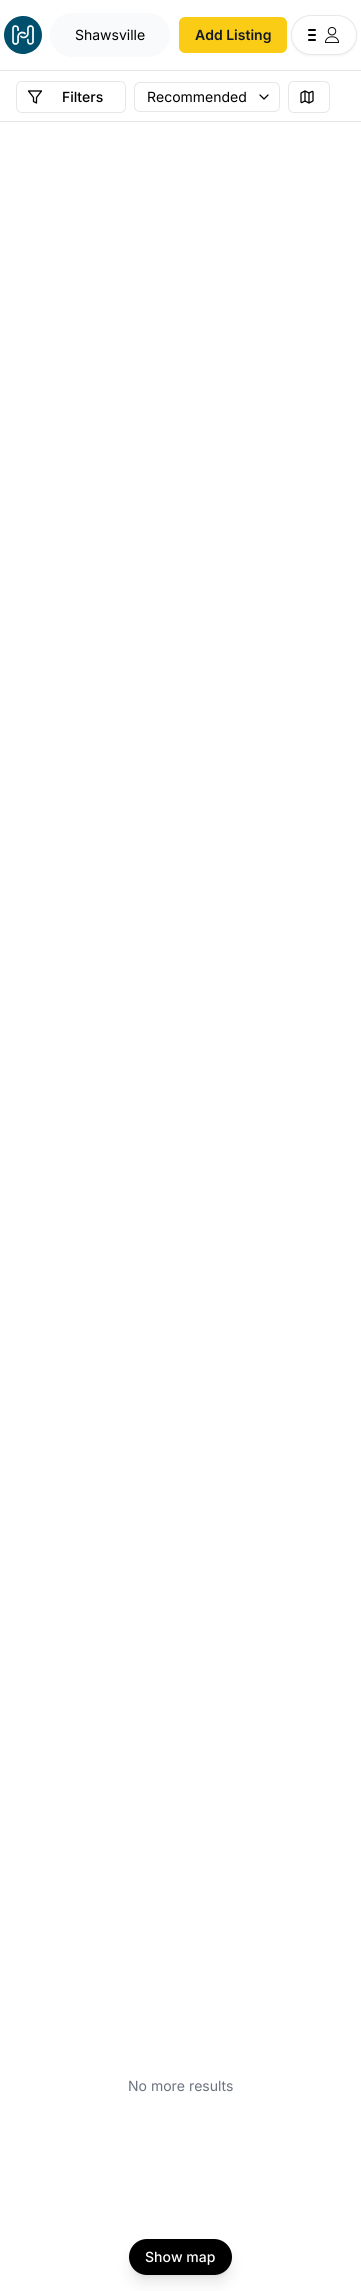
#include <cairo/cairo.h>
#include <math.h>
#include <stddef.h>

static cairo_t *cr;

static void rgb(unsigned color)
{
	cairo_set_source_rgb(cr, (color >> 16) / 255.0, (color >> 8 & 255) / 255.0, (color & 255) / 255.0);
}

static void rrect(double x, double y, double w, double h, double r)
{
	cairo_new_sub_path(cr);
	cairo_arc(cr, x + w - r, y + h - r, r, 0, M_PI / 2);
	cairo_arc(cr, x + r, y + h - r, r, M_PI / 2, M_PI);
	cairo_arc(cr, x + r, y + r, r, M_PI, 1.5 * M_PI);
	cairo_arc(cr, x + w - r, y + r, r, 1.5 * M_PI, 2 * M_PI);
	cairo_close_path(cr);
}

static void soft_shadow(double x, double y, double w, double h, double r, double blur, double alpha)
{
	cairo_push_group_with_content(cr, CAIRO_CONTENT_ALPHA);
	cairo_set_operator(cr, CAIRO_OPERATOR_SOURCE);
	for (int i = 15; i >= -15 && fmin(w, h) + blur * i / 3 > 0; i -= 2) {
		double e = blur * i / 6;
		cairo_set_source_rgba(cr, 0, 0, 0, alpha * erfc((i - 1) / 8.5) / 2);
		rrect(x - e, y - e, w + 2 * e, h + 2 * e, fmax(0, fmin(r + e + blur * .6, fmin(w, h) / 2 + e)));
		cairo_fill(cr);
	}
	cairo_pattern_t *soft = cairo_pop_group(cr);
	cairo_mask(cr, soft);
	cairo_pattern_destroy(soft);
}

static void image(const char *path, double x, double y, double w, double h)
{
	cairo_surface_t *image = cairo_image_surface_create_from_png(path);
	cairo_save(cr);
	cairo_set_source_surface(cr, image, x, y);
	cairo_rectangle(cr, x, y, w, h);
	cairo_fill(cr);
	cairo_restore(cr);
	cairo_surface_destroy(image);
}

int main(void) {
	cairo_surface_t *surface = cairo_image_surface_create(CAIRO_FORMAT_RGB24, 361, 2291);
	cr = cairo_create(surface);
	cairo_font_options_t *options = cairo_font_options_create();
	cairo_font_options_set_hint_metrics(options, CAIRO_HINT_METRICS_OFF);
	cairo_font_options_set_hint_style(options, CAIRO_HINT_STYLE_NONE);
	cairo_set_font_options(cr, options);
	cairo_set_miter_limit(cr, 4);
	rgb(0xffffff);
	cairo_paint(cr);
	rgb(0xe5e7eb);
	cairo_rectangle(cr, 0, 70, 361, 1);
	cairo_fill(cr);
	image("img/1.png", 4, 16, 38, 38);
	rgb(0xf9fafb);
	rrect(50, 13, 120, 44, 22);
	cairo_fill(cr);
	rgb(0xfacc15);
	rrect(179, 17, 108, 36, 6);
	cairo_fill(cr);
	rgb(0x000000);
	soft_shadow(291, 16, 66, 40, 20, 1, 0.05);
	rgb(0xffffff);
	rrect(291.5, 15.5, 65, 39, 19.5);
	cairo_fill_preserve(cr);
	rgb(0xe5e7eb);
	cairo_set_line_width(cr, 1);
	cairo_stroke(cr);
	rgb(0x000000);
	rrect(308, 29, 8, 2, 1);
	cairo_fill(cr);
	rrect(308, 34, 8, 2, 1);
	cairo_fill(cr);
	rrect(308, 39, 8, 2, 1);
	cairo_fill(cr);
	image("img/2.png", 325, 27, 14, 16);
	rgb(0xe5e7eb);
	cairo_rectangle(cr, 0, 121, 361, 1);
	cairo_fill(cr);
	rrect(16.5, 81.5, 109, 31, 5.5);
	cairo_stroke(cr);
	cairo_new_path(cr);
	cairo_move_to(cr, 41.5, 91);
	cairo_line_to(cr, 28.5, 91);
	cairo_line_to(cr, 33.5, 97.5);
	cairo_line_to(cr, 33.5, 101.5);
	cairo_line_to(cr, 36.5, 103);
	cairo_line_to(cr, 36.5, 97.5);
	cairo_close_path(cr);
	rgb(0x000000);
	cairo_set_line_width(cr, 1.3);
	cairo_set_line_cap(cr, CAIRO_LINE_CAP_ROUND);
	cairo_set_line_join(cr, CAIRO_LINE_JOIN_ROUND);
	cairo_stroke(cr);
	rrect(134.5, 82.5, 145, 29, 5.5);
	rgb(0xe5e7eb);
	cairo_set_line_width(cr, 1);
	cairo_set_line_cap(cr, CAIRO_LINE_CAP_BUTT);
	cairo_set_line_join(cr, CAIRO_LINE_JOIN_MITER);
	cairo_stroke(cr);
	cairo_new_path(cr);
	cairo_move_to(cr, 260, 95);
	cairo_line_to(cr, 264, 99);
	cairo_line_to(cr, 268, 95);
	rgb(0x000000);
	cairo_set_line_width(cr, 1.3);
	cairo_set_line_cap(cr, CAIRO_LINE_CAP_ROUND);
	cairo_set_line_join(cr, CAIRO_LINE_JOIN_ROUND);
	cairo_stroke(cr);
	rrect(288.5, 81.5, 41, 31, 5.5);
	rgb(0xe5e7eb);
	cairo_set_line_width(cr, 1);
	cairo_set_line_cap(cr, CAIRO_LINE_CAP_BUTT);
	cairo_set_line_join(cr, CAIRO_LINE_JOIN_MITER);
	cairo_stroke(cr);
	image("img/3.png", 300, 90, 14, 14);
	rgb(0x000000);
	soft_shadow(133, 2247, 95, 28, 14, 3, 0.1);
	soft_shadow(132, 2252, 97, 30, 15, 7.5, 0.1);
	rgb(0x000000);
	rrect(129, 2239, 103, 36, 18);
	cairo_fill(cr);
	cairo_select_font_face(cr, "Inter", CAIRO_FONT_SLANT_NORMAL, CAIRO_FONT_WEIGHT_NORMAL);
	cairo_set_font_size(cr, 14);
	cairo_move_to(cr, 75, 40);
	cairo_show_text(cr, "Shawsville");
	cairo_select_font_face(cr, "Inter SemiBold", CAIRO_FONT_SLANT_NORMAL, CAIRO_FONT_WEIGHT_NORMAL);
	rgb(0x111827);
	cairo_move_to(cr, 195, 40);
	cairo_show_text(cr, "Add Listing");
	cairo_select_font_face(cr, "Inter Medium", CAIRO_FONT_SLANT_NORMAL, CAIRO_FONT_WEIGHT_NORMAL);
	rgb(0x000000);
	cairo_move_to(cr, 62, 102);
	cairo_show_text(cr, "Filters");
	cairo_select_font_face(cr, "Inter", CAIRO_FONT_SLANT_NORMAL, CAIRO_FONT_WEIGHT_NORMAL);
	cairo_move_to(cr, 147, 102);
	cairo_show_text(cr, "Recommended");
	rgb(0x6b7280);
	cairo_move_to(cr, 128, 2091);
	cairo_show_text(cr, "No more results");
	cairo_select_font_face(cr, "Inter Medium", CAIRO_FONT_SLANT_NORMAL, CAIRO_FONT_WEIGHT_NORMAL);
	rgb(0xffffff);
	cairo_move_to(cr, 145, 2262);
	cairo_show_text(cr, "Show map");
	cairo_surface_write_to_png(surface, "page.png");
	cairo_font_options_destroy(options);
	cairo_destroy(cr);
	cairo_surface_destroy(surface);
	return 0;
}
